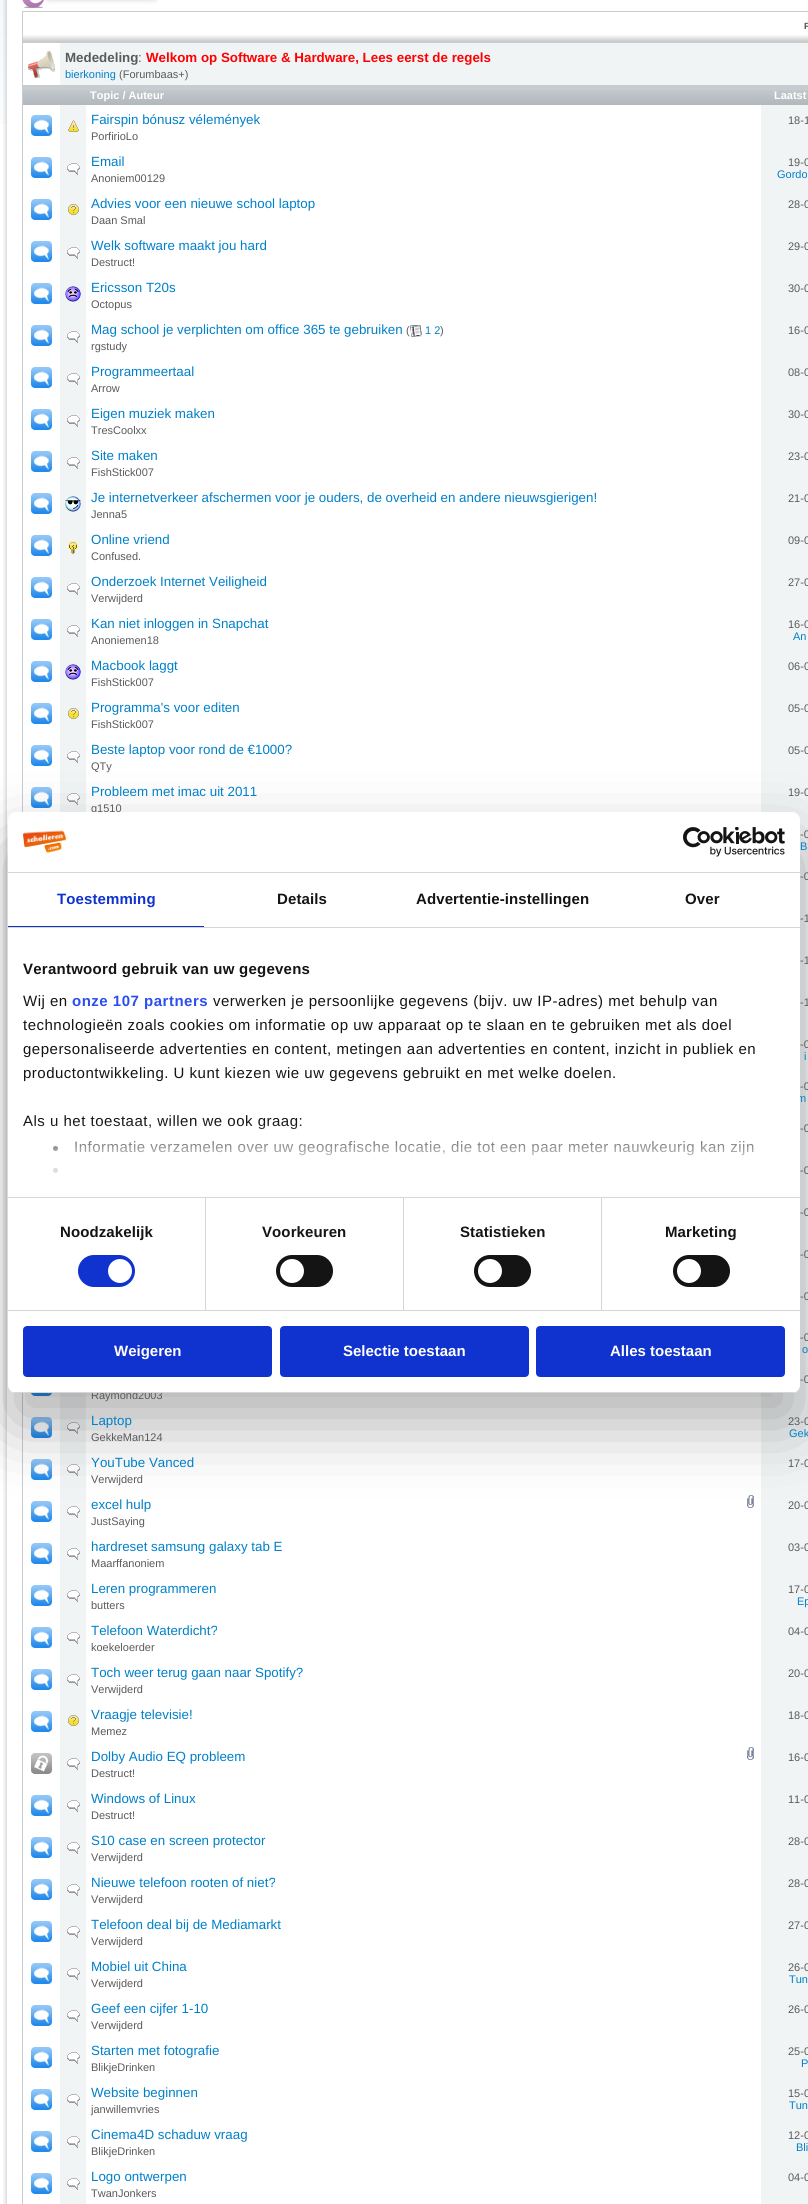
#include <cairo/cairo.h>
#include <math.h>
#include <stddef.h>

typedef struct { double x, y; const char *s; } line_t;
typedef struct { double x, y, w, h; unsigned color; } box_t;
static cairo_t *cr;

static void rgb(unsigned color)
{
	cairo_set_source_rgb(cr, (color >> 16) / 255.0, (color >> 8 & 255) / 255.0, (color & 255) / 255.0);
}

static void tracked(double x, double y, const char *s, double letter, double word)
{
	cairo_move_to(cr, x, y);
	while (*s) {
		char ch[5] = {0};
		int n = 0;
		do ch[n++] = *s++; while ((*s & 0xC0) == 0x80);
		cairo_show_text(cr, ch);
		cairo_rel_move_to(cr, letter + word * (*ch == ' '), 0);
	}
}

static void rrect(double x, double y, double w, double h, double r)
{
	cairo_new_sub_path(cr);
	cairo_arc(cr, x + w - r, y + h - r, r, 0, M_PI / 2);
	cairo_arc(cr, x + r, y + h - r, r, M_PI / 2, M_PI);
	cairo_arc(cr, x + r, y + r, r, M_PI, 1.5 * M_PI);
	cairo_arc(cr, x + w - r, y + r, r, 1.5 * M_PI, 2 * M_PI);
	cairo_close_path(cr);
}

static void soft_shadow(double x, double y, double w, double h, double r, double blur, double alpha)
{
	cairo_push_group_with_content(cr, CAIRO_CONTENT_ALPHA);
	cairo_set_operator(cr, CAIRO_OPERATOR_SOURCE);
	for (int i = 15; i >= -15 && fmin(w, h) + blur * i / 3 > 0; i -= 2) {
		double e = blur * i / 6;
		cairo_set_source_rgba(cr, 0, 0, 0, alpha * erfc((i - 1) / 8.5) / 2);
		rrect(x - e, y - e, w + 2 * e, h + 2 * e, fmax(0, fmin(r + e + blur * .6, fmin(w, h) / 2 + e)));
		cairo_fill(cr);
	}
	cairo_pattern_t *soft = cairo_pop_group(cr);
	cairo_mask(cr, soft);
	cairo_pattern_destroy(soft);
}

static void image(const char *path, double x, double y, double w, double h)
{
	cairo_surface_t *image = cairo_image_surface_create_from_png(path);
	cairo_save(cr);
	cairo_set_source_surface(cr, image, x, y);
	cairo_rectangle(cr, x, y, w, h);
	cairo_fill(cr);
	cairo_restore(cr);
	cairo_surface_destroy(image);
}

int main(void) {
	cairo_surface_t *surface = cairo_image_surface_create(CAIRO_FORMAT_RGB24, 808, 2204);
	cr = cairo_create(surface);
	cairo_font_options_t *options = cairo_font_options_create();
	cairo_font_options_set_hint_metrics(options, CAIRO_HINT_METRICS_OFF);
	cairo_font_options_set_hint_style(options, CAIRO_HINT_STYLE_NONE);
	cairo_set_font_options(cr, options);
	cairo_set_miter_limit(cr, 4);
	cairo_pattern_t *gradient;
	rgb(0xffffff);
	cairo_paint(cr);
	image("img/1.png", 0, 0, 7, 124);
	image("img/2.png", 3, 0, 805, 2204);
	image("img/3.png", 22, 0, 136, 8);
	rgb(0xc7ccd0);
	cairo_rectangle(cr, 22, 11, 786, 1);
	cairo_fill(cr);
	cairo_rectangle(cr, 22, 11, 1, 31);
	cairo_fill(cr);
	image("img/4.png", 799, 35, 9, 7);
	image("img/5.png", 23, 35, 776, 7);
	cairo_rectangle(cr, 22.5, 42.5, 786, 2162);
	cairo_set_line_width(cr, 1);
	cairo_stroke(cr);
	image("img/6.png", 28, 51, 27, 27);
	rgb(0xf1f4f5);
	cairo_rectangle(cr, 60, 43, 748, 42);
	cairo_fill(cr);
	rgb(0xc7ccd0);
	cairo_rectangle(cr, 23, 85, 785, 5);
	cairo_fill(cr);
	image("img/7.png", 23, 90, 63, 15);
	image("img/8.png", 86, 90, 675, 15);
	image("img/9.png", 761, 90, 47, 15);
	image("img/10.png", 31, 115, 21, 21);
	rgb(0xf1f4f5);
	cairo_rectangle(cr, 60, 105, 26, 707);
	cairo_fill(cr);
	image("img/11.png", 68, 120, 11, 12);
	cairo_rectangle(cr, 761, 105, 47, 714);
	cairo_fill(cr);
	image("img/10.png", 31, 157, 21, 21);
	image("img/12.png", 67, 163, 13, 12);
	image("img/10.png", 31, 199, 21, 21);
	image("img/13.png", 68, 204, 11, 11);
	image("img/10.png", 31, 241, 21, 21);
	image("img/12.png", 67, 247, 13, 12);
	image("img/10.png", 31, 283, 21, 21);
	image("img/14.png", 65, 286, 16, 16);
	image("img/10.png", 31, 325, 21, 21);
	image("img/12.png", 67, 331, 13, 12);
	image("img/15.png", 410, 325, 12, 12);
	image("img/10.png", 31, 367, 21, 21);
	image("img/12.png", 67, 373, 13, 12);
	image("img/10.png", 31, 409, 21, 21);
	image("img/12.png", 67, 415, 13, 12);
	image("img/10.png", 31, 451, 21, 21);
	image("img/12.png", 67, 457, 13, 12);
	image("img/10.png", 31, 493, 21, 21);
	image("img/16.png", 65, 496, 16, 16);
	image("img/10.png", 31, 535, 21, 21);
	image("img/17.png", 68, 541, 10, 13);
	image("img/10.png", 31, 577, 21, 21);
	image("img/12.png", 67, 583, 13, 12);
	image("img/10.png", 31, 619, 21, 21);
	image("img/12.png", 67, 625, 13, 12);
	image("img/10.png", 31, 661, 21, 21);
	image("img/14.png", 65, 664, 16, 16);
	image("img/10.png", 31, 703, 21, 21);
	image("img/13.png", 68, 708, 11, 11);
	image("img/10.png", 31, 745, 21, 21);
	image("img/12.png", 67, 751, 13, 12);
	image("img/10.png", 31, 787, 21, 21);
	image("img/12.png", 67, 793, 13, 12);
	{
		static const box_t items[] = {
			{799, 819, 9, 42, 0xf1f4f5},
			{800, 861, 8, 503, 0xf1f4f5},
			{761, 1364, 47, 840, 0xf1f4f5},
		};
		for (size_t i = 0; i < sizeof items / sizeof *items; i++) {
			rgb(items[i].color);
			cairo_rectangle(cr, items[i].x, items[i].y, items[i].w, items[i].h);
			cairo_fill(cr);
		}
	}
	image("img/18.png", 31, 1393, 21, 3);
	cairo_rectangle(cr, 60, 1393, 26, 811);
	cairo_fill(cr);
	image("img/10.png", 31, 1417, 21, 21);
	image("img/12.png", 67, 1422, 13, 12);
	image("img/10.png", 31, 1459, 21, 21);
	image("img/12.png", 67, 1464, 13, 12);
	image("img/10.png", 31, 1501, 21, 21);
	image("img/12.png", 67, 1506, 13, 12);
	image("img/19.png", 747, 1495, 7, 13);
	image("img/10.png", 31, 1543, 21, 21);
	image("img/12.png", 67, 1548, 13, 12);
	image("img/10.png", 31, 1585, 21, 21);
	image("img/12.png", 67, 1590, 13, 12);
	image("img/10.png", 31, 1627, 21, 21);
	image("img/12.png", 67, 1632, 13, 12);
	image("img/10.png", 31, 1669, 21, 21);
	image("img/12.png", 67, 1674, 13, 12);
	image("img/10.png", 31, 1711, 21, 21);
	image("img/13.png", 68, 1715, 11, 11);
	image("img/20.png", 31, 1753, 21, 21);
	image("img/12.png", 67, 1758, 13, 12);
	image("img/19.png", 747, 1747, 7, 13);
	image("img/10.png", 31, 1795, 21, 21);
	image("img/12.png", 67, 1800, 13, 12);
	image("img/10.png", 31, 1837, 21, 21);
	image("img/12.png", 67, 1842, 13, 12);
	image("img/10.png", 31, 1879, 21, 21);
	image("img/12.png", 67, 1884, 13, 12);
	image("img/10.png", 31, 1921, 21, 21);
	image("img/12.png", 67, 1926, 13, 12);
	image("img/10.png", 31, 1963, 21, 21);
	image("img/12.png", 67, 1968, 13, 12);
	image("img/10.png", 31, 2005, 21, 21);
	image("img/12.png", 67, 2010, 13, 12);
	image("img/10.png", 31, 2047, 21, 21);
	image("img/12.png", 67, 2052, 13, 12);
	image("img/10.png", 31, 2089, 21, 21);
	image("img/12.png", 67, 2094, 13, 12);
	image("img/10.png", 31, 2131, 21, 21);
	image("img/12.png", 67, 2136, 13, 12);
	image("img/10.png", 31, 2173, 21, 21);
	image("img/12.png", 67, 2178, 13, 12);
	rgb(0x000000);
	soft_shadow(8, 844, 792, 581, 8, 34, 0.3);
	cairo_select_font_face(cr, "Liberation Sans", CAIRO_FONT_SLANT_NORMAL, CAIRO_FONT_WEIGHT_BOLD);
	cairo_set_font_size(cr, 9);
	rgb(0x515151);
	cairo_move_to(cr, 804, 29);
	cairo_show_text(cr, "F");
	cairo_set_font_size(cr, 13.35);
	rgb(0x5a5a5a);
	cairo_move_to(cr, 65, 62);
	cairo_show_text(cr, "Mededeling");
	cairo_select_font_face(cr, "Liberation Sans", CAIRO_FONT_SLANT_NORMAL, CAIRO_FONT_WEIGHT_NORMAL);
	cairo_move_to(cr, 138, 62);
	cairo_show_text(cr, ":");
	cairo_select_font_face(cr, "Liberation Sans", CAIRO_FONT_SLANT_NORMAL, CAIRO_FONT_WEIGHT_BOLD);
	rgb(0xff0000);
	cairo_move_to(cr, 146, 62);
	cairo_show_text(cr, "Welkom op Software & Hardware, Lees eerst de regels");
	cairo_select_font_face(cr, "Liberation Sans", CAIRO_FONT_SLANT_NORMAL, CAIRO_FONT_WEIGHT_NORMAL);
	cairo_set_font_size(cr, 11);
	rgb(0x0080c9);
	cairo_move_to(cr, 65, 78);
	cairo_show_text(cr, "bierkoning");
	rgb(0x5a5a5a);
	cairo_move_to(cr, 119, 78);
	cairo_show_text(cr, "(Forumbaas+)");
	cairo_select_font_face(cr, "Liberation Sans", CAIRO_FONT_SLANT_NORMAL, CAIRO_FONT_WEIGHT_BOLD);
	rgb(0xffffff);
	cairo_move_to(cr, 90, 99);
	cairo_show_text(cr, "Topic / Auteur");
	cairo_move_to(cr, 774, 99);
	cairo_show_text(cr, "Laatst");
	cairo_select_font_face(cr, "Liberation Sans", CAIRO_FONT_SLANT_NORMAL, CAIRO_FONT_WEIGHT_NORMAL);
	cairo_set_font_size(cr, 13.35);
	rgb(0x0080c9);
	cairo_move_to(cr, 91, 124);
	cairo_show_text(cr, "Fairspin bónusz vélemények");
	cairo_set_font_size(cr, 11);
	rgb(0x5a5a5a);
	cairo_move_to(cr, 91, 140);
	cairo_show_text(cr, "PorfirioLo");
	cairo_move_to(cr, 788, 124);
	cairo_show_text(cr, "18-1");
	cairo_set_font_size(cr, 13.35);
	rgb(0x0080c9);
	cairo_move_to(cr, 91, 166);
	cairo_show_text(cr, "Email");
	cairo_set_font_size(cr, 11);
	rgb(0x5a5a5a);
	cairo_move_to(cr, 91, 182);
	cairo_show_text(cr, "Anoniem00129");
	cairo_move_to(cr, 788, 166);
	cairo_show_text(cr, "19-0");
	rgb(0x0080c9);
	cairo_move_to(cr, 777, 178);
	cairo_show_text(cr, "Gordo");
	cairo_set_font_size(cr, 13.35);
	cairo_move_to(cr, 91, 208);
	cairo_show_text(cr, "Advies voor een nieuwe school laptop");
	cairo_set_font_size(cr, 11);
	rgb(0x5a5a5a);
	cairo_move_to(cr, 91, 224);
	cairo_show_text(cr, "Daan Smal");
	cairo_move_to(cr, 788, 208);
	cairo_show_text(cr, "28-0");
	cairo_set_font_size(cr, 13.35);
	rgb(0x0080c9);
	cairo_move_to(cr, 91, 250);
	cairo_show_text(cr, "Welk software maakt jou hard");
	cairo_set_font_size(cr, 11);
	rgb(0x5a5a5a);
	cairo_move_to(cr, 91, 266);
	cairo_show_text(cr, "Destruct!");
	cairo_move_to(cr, 788, 250);
	cairo_show_text(cr, "29-0");
	cairo_set_font_size(cr, 13.35);
	rgb(0x0080c9);
	cairo_move_to(cr, 91, 292);
	cairo_show_text(cr, "Ericsson T20s");
	cairo_set_font_size(cr, 11);
	rgb(0x5a5a5a);
	cairo_move_to(cr, 91, 308);
	cairo_show_text(cr, "Octopus");
	cairo_move_to(cr, 788, 292);
	cairo_show_text(cr, "30-0");
	cairo_set_font_size(cr, 13.35);
	rgb(0x0080c9);
	cairo_move_to(cr, 91, 334);
	cairo_show_text(cr, "Mag school je verplichten om office 365 te gebruiken");
	cairo_set_font_size(cr, 11);
	rgb(0x5a5a5a);
	cairo_move_to(cr, 406, 334);
	cairo_show_text(cr, "(");
	rgb(0x0080c9);
	cairo_move_to(cr, 425, 334);
	cairo_show_text(cr, "1 2");
	rgb(0x5a5a5a);
	{
		static const line_t items[] = {
			{440, 334, ")"},
			{91, 350, "rgstudy"},
			{788, 334, "16-0"},
		};
		for (size_t i = 0; i < sizeof items / sizeof *items; i++) {
			cairo_move_to(cr, items[i].x, items[i].y);
			cairo_show_text(cr, items[i].s);
		}
	}
	cairo_set_font_size(cr, 13.35);
	rgb(0x0080c9);
	cairo_move_to(cr, 91, 376);
	cairo_show_text(cr, "Programmeertaal");
	cairo_set_font_size(cr, 11);
	rgb(0x5a5a5a);
	cairo_move_to(cr, 91, 392);
	cairo_show_text(cr, "Arrow");
	cairo_move_to(cr, 788, 376);
	cairo_show_text(cr, "08-0");
	cairo_set_font_size(cr, 13.35);
	rgb(0x0080c9);
	cairo_move_to(cr, 91, 418);
	cairo_show_text(cr, "Eigen muziek maken");
	cairo_set_font_size(cr, 11);
	rgb(0x5a5a5a);
	cairo_move_to(cr, 91, 434);
	cairo_show_text(cr, "TresCoolxx");
	cairo_move_to(cr, 788, 418);
	cairo_show_text(cr, "30-0");
	cairo_set_font_size(cr, 13.35);
	rgb(0x0080c9);
	cairo_move_to(cr, 91, 460);
	cairo_show_text(cr, "Site maken");
	cairo_set_font_size(cr, 11);
	rgb(0x5a5a5a);
	cairo_move_to(cr, 91, 476);
	cairo_show_text(cr, "FishStick007");
	cairo_move_to(cr, 788, 460);
	cairo_show_text(cr, "23-0");
	cairo_set_font_size(cr, 13.35);
	rgb(0x0080c9);
	cairo_move_to(cr, 91, 502);
	cairo_show_text(cr, "Je internetverkeer afschermen voor je ouders, de overheid en andere nieuwsgierigen!");
	cairo_set_font_size(cr, 11);
	rgb(0x5a5a5a);
	cairo_move_to(cr, 91, 518);
	cairo_show_text(cr, "Jenna5");
	cairo_move_to(cr, 788, 502);
	cairo_show_text(cr, "21-0");
	cairo_set_font_size(cr, 13.35);
	rgb(0x0080c9);
	cairo_move_to(cr, 91, 544);
	cairo_show_text(cr, "Online vriend");
	cairo_set_font_size(cr, 11);
	rgb(0x5a5a5a);
	cairo_move_to(cr, 91, 560);
	cairo_show_text(cr, "Confused.");
	cairo_move_to(cr, 788, 544);
	cairo_show_text(cr, "09-0");
	cairo_set_font_size(cr, 13.35);
	rgb(0x0080c9);
	cairo_move_to(cr, 91, 586);
	cairo_show_text(cr, "Onderzoek Internet Veiligheid");
	cairo_set_font_size(cr, 11);
	rgb(0x5a5a5a);
	cairo_move_to(cr, 91, 602);
	cairo_show_text(cr, "Verwijderd");
	cairo_move_to(cr, 788, 586);
	cairo_show_text(cr, "27-0");
	cairo_set_font_size(cr, 13.35);
	rgb(0x0080c9);
	cairo_move_to(cr, 91, 628);
	cairo_show_text(cr, "Kan niet inloggen in Snapchat");
	cairo_set_font_size(cr, 11);
	rgb(0x5a5a5a);
	cairo_move_to(cr, 91, 644);
	cairo_show_text(cr, "Anoniemen18");
	cairo_move_to(cr, 788, 628);
	cairo_show_text(cr, "16-0");
	rgb(0x0080c9);
	cairo_move_to(cr, 793, 640);
	cairo_show_text(cr, "An");
	cairo_set_font_size(cr, 13.35);
	cairo_move_to(cr, 91, 670);
	cairo_show_text(cr, "Macbook laggt");
	cairo_set_font_size(cr, 11);
	rgb(0x5a5a5a);
	cairo_move_to(cr, 91, 686);
	cairo_show_text(cr, "FishStick007");
	cairo_move_to(cr, 788, 670);
	cairo_show_text(cr, "06-0");
	cairo_set_font_size(cr, 13.35);
	rgb(0x0080c9);
	cairo_move_to(cr, 91, 712);
	cairo_show_text(cr, "Programma's voor editen");
	cairo_set_font_size(cr, 11);
	rgb(0x5a5a5a);
	cairo_move_to(cr, 91, 728);
	cairo_show_text(cr, "FishStick007");
	cairo_move_to(cr, 788, 712);
	cairo_show_text(cr, "05-0");
	cairo_set_font_size(cr, 13.35);
	rgb(0x0080c9);
	cairo_move_to(cr, 91, 754);
	cairo_show_text(cr, "Beste laptop voor rond de €1000?");
	cairo_set_font_size(cr, 11);
	rgb(0x5a5a5a);
	cairo_move_to(cr, 91, 770);
	cairo_show_text(cr, "QTy");
	cairo_move_to(cr, 788, 754);
	cairo_show_text(cr, "05-0");
	cairo_set_font_size(cr, 13.35);
	rgb(0x0080c9);
	cairo_move_to(cr, 91, 796);
	cairo_show_text(cr, "Probleem met imac uit 2011");
	cairo_set_font_size(cr, 11);
	rgb(0x5a5a5a);
	{
		static const line_t items[] = {
			{91, 812, "g1510"},
			{788, 796, "19-0"},
			{800, 838, "-0"},
		};
		for (size_t i = 0; i < sizeof items / sizeof *items; i++) {
			cairo_move_to(cr, items[i].x, items[i].y);
			cairo_show_text(cr, items[i].s);
		}
	}
	rgb(0x0080c9);
	cairo_move_to(cr, 800, 850);
	cairo_show_text(cr, "B");
	rgb(0x5a5a5a);
	{
		static const line_t items[] = {
			{800, 880, "-0"},
			{800, 922, "-1"},
			{800, 964, "-1"},
			{800, 1006, "-1"},
			{800, 1048, "-0"},
		};
		for (size_t i = 0; i < sizeof items / sizeof *items; i++) {
			cairo_move_to(cr, items[i].x, items[i].y);
			cairo_show_text(cr, items[i].s);
		}
	}
	rgb(0x0080c9);
	cairo_move_to(cr, 804, 1060);
	cairo_show_text(cr, "i");
	rgb(0x5a5a5a);
	cairo_move_to(cr, 800, 1090);
	cairo_show_text(cr, "-0");
	rgb(0x0080c9);
	cairo_move_to(cr, 797, 1102);
	cairo_show_text(cr, "m");
	rgb(0x5a5a5a);
	{
		static const line_t items[] = {
			{800, 1132, "-0"},
			{800, 1174, "-0"},
			{800, 1216, "-0"},
			{800, 1258, "-0"},
			{800, 1300, "-0"},
			{800, 1341, "-0"},
		};
		for (size_t i = 0; i < sizeof items / sizeof *items; i++) {
			cairo_move_to(cr, items[i].x, items[i].y);
			cairo_show_text(cr, items[i].s);
		}
	}
	rgb(0x0080c9);
	cairo_move_to(cr, 802, 1353);
	cairo_show_text(cr, "o");
	rgb(0x5a5a5a);
	cairo_move_to(cr, 800, 1383);
	cairo_show_text(cr, "-0");
	cairo_move_to(cr, 91, 1399);
	cairo_show_text(cr, "Raymond2003");
	cairo_set_font_size(cr, 13.35);
	rgb(0x0080c9);
	cairo_move_to(cr, 91, 1425);
	cairo_show_text(cr, "Laptop");
	cairo_set_font_size(cr, 11);
	rgb(0x5a5a5a);
	cairo_move_to(cr, 91, 1441);
	cairo_show_text(cr, "GekkeMan124");
	cairo_move_to(cr, 788, 1425);
	cairo_show_text(cr, "23-0");
	rgb(0x0080c9);
	cairo_move_to(cr, 789, 1437);
	cairo_show_text(cr, "Gek");
	cairo_set_font_size(cr, 13.35);
	cairo_move_to(cr, 91, 1467);
	cairo_show_text(cr, "YouTube Vanced");
	cairo_set_font_size(cr, 11);
	rgb(0x5a5a5a);
	cairo_move_to(cr, 91, 1483);
	cairo_show_text(cr, "Verwijderd");
	cairo_move_to(cr, 788, 1467);
	cairo_show_text(cr, "17-0");
	cairo_set_font_size(cr, 13.35);
	rgb(0x0080c9);
	cairo_move_to(cr, 91, 1509);
	cairo_show_text(cr, "excel hulp");
	cairo_set_font_size(cr, 11);
	rgb(0x5a5a5a);
	cairo_move_to(cr, 91, 1525);
	cairo_show_text(cr, "JustSaying");
	cairo_move_to(cr, 788, 1509);
	cairo_show_text(cr, "20-0");
	cairo_set_font_size(cr, 13.35);
	rgb(0x0080c9);
	cairo_move_to(cr, 91, 1551);
	cairo_show_text(cr, "hardreset samsung galaxy tab E");
	cairo_set_font_size(cr, 11);
	rgb(0x5a5a5a);
	cairo_move_to(cr, 91, 1567);
	cairo_show_text(cr, "Maarffanoniem");
	cairo_move_to(cr, 788, 1551);
	cairo_show_text(cr, "03-0");
	cairo_set_font_size(cr, 13.35);
	rgb(0x0080c9);
	cairo_move_to(cr, 91, 1593);
	cairo_show_text(cr, "Leren programmeren");
	cairo_set_font_size(cr, 11);
	rgb(0x5a5a5a);
	cairo_move_to(cr, 91, 1609);
	cairo_show_text(cr, "butters");
	cairo_move_to(cr, 788, 1593);
	cairo_show_text(cr, "17-0");
	rgb(0x0080c9);
	cairo_move_to(cr, 797, 1605);
	cairo_show_text(cr, "Ep");
	cairo_set_font_size(cr, 13.35);
	cairo_move_to(cr, 91, 1635);
	cairo_show_text(cr, "Telefoon Waterdicht?");
	cairo_set_font_size(cr, 11);
	rgb(0x5a5a5a);
	cairo_move_to(cr, 91, 1651);
	cairo_show_text(cr, "koekeloerder");
	cairo_move_to(cr, 788, 1635);
	cairo_show_text(cr, "04-0");
	cairo_set_font_size(cr, 13.35);
	rgb(0x0080c9);
	cairo_move_to(cr, 91, 1677);
	cairo_show_text(cr, "Toch weer terug gaan naar Spotify?");
	cairo_set_font_size(cr, 11);
	rgb(0x5a5a5a);
	cairo_move_to(cr, 91, 1693);
	cairo_show_text(cr, "Verwijderd");
	cairo_move_to(cr, 788, 1677);
	cairo_show_text(cr, "20-0");
	cairo_set_font_size(cr, 13.35);
	rgb(0x0080c9);
	cairo_move_to(cr, 91, 1719);
	cairo_show_text(cr, "Vraagje televisie!");
	cairo_set_font_size(cr, 11);
	rgb(0x5a5a5a);
	cairo_move_to(cr, 91, 1735);
	cairo_show_text(cr, "Memez");
	cairo_move_to(cr, 788, 1719);
	cairo_show_text(cr, "18-0");
	cairo_set_font_size(cr, 13.35);
	rgb(0x0080c9);
	cairo_move_to(cr, 91, 1761);
	cairo_show_text(cr, "Dolby Audio EQ probleem");
	cairo_set_font_size(cr, 11);
	rgb(0x5a5a5a);
	cairo_move_to(cr, 91, 1777);
	cairo_show_text(cr, "Destruct!");
	cairo_move_to(cr, 788, 1761);
	cairo_show_text(cr, "16-0");
	cairo_set_font_size(cr, 13.35);
	rgb(0x0080c9);
	cairo_move_to(cr, 91, 1803);
	cairo_show_text(cr, "Windows of Linux");
	cairo_set_font_size(cr, 11);
	rgb(0x5a5a5a);
	cairo_move_to(cr, 91, 1819);
	cairo_show_text(cr, "Destruct!");
	cairo_move_to(cr, 788, 1803);
	cairo_show_text(cr, "11-0");
	cairo_set_font_size(cr, 13.35);
	rgb(0x0080c9);
	cairo_move_to(cr, 91, 1845);
	cairo_show_text(cr, "S10 case en screen protector");
	cairo_set_font_size(cr, 11);
	rgb(0x5a5a5a);
	cairo_move_to(cr, 91, 1861);
	cairo_show_text(cr, "Verwijderd");
	cairo_move_to(cr, 788, 1845);
	cairo_show_text(cr, "28-0");
	cairo_set_font_size(cr, 13.35);
	rgb(0x0080c9);
	cairo_move_to(cr, 91, 1887);
	cairo_show_text(cr, "Nieuwe telefoon rooten of niet?");
	cairo_set_font_size(cr, 11);
	rgb(0x5a5a5a);
	cairo_move_to(cr, 91, 1903);
	cairo_show_text(cr, "Verwijderd");
	cairo_move_to(cr, 788, 1887);
	cairo_show_text(cr, "28-0");
	cairo_set_font_size(cr, 13.35);
	rgb(0x0080c9);
	cairo_move_to(cr, 91, 1929);
	cairo_show_text(cr, "Telefoon deal bij de Mediamarkt");
	cairo_set_font_size(cr, 11);
	rgb(0x5a5a5a);
	cairo_move_to(cr, 91, 1945);
	cairo_show_text(cr, "Verwijderd");
	cairo_move_to(cr, 788, 1929);
	cairo_show_text(cr, "27-0");
	cairo_set_font_size(cr, 13.35);
	rgb(0x0080c9);
	cairo_move_to(cr, 91, 1971);
	cairo_show_text(cr, "Mobiel uit China");
	cairo_set_font_size(cr, 11);
	rgb(0x5a5a5a);
	cairo_move_to(cr, 91, 1987);
	cairo_show_text(cr, "Verwijderd");
	cairo_move_to(cr, 788, 1971);
	cairo_show_text(cr, "26-0");
	rgb(0x0080c9);
	cairo_move_to(cr, 789, 1983);
	cairo_show_text(cr, "Tun");
	cairo_set_font_size(cr, 13.35);
	cairo_move_to(cr, 91, 2013);
	cairo_show_text(cr, "Geef een cijfer 1-10");
	cairo_set_font_size(cr, 11);
	rgb(0x5a5a5a);
	cairo_move_to(cr, 91, 2029);
	cairo_show_text(cr, "Verwijderd");
	cairo_move_to(cr, 788, 2013);
	cairo_show_text(cr, "26-0");
	cairo_set_font_size(cr, 13.35);
	rgb(0x0080c9);
	cairo_move_to(cr, 91, 2055);
	cairo_show_text(cr, "Starten met fotografie");
	cairo_set_font_size(cr, 11);
	rgb(0x5a5a5a);
	cairo_move_to(cr, 91, 2071);
	cairo_show_text(cr, "BlikjeDrinken");
	cairo_move_to(cr, 788, 2055);
	cairo_show_text(cr, "25-0");
	rgb(0x0080c9);
	cairo_move_to(cr, 801, 2067);
	cairo_show_text(cr, "P");
	cairo_set_font_size(cr, 13.35);
	cairo_move_to(cr, 91, 2097);
	cairo_show_text(cr, "Website beginnen");
	cairo_set_font_size(cr, 11);
	rgb(0x5a5a5a);
	cairo_move_to(cr, 91, 2113);
	cairo_show_text(cr, "janwillemvries");
	cairo_move_to(cr, 788, 2097);
	cairo_show_text(cr, "15-0");
	rgb(0x0080c9);
	cairo_move_to(cr, 789, 2109);
	cairo_show_text(cr, "Tun");
	cairo_set_font_size(cr, 13.35);
	cairo_move_to(cr, 91, 2139);
	cairo_show_text(cr, "Cinema4D schaduw vraag");
	cairo_set_font_size(cr, 11);
	rgb(0x5a5a5a);
	cairo_move_to(cr, 91, 2155);
	cairo_show_text(cr, "BlikjeDrinken");
	cairo_move_to(cr, 788, 2139);
	cairo_show_text(cr, "12-0");
	rgb(0x0080c9);
	cairo_move_to(cr, 796, 2151);
	cairo_show_text(cr, "Bli");
	cairo_set_font_size(cr, 13.35);
	cairo_move_to(cr, 91, 2181);
	cairo_show_text(cr, "Logo ontwerpen");
	cairo_set_font_size(cr, 11);
	rgb(0x5a5a5a);
	cairo_move_to(cr, 91, 2197);
	cairo_show_text(cr, "TwanJonkers");
	cairo_move_to(cr, 788, 2181);
	cairo_show_text(cr, "04-0");
	rgb(0xffffff);
	rrect(8, 812, 792, 581, 8);
	cairo_fill(cr);
	rgb(0xd6d6d6);
	cairo_rectangle(cr, 8, 872, 792, 1);
	cairo_fill(cr);
	image("img/21.png", 23, 830, 44, 23);
	image("img/22.png", 683, 827, 102, 30);
	cairo_rectangle(cr, 8, 927, 792, 1);
	cairo_fill(cr);
	rgb(0x1032cf);
	cairo_rectangle(cr, 8, 926, 196, 1);
	cairo_fill(cr);
	cairo_select_font_face(cr, "Liberation Sans", CAIRO_FONT_SLANT_NORMAL, CAIRO_FONT_WEIGHT_BOLD);
	cairo_set_font_size(cr, 15);
	tracked(57, 904, "Toestemming", 0.1, 0);
	rgb(0x141414);
	{
		static const line_t items[] = {
			{277, 904, "Details"},
			{416, 904, "Advertentie-instellingen"},
			{685, 904, "Over"},
		};
		for (size_t i = 0; i < sizeof items / sizeof *items; i++) {
			tracked(items[i].x, items[i].y, items[i].s, 0.1, 0);
		}
	}
	rgb(0xd6d6d6);
	cairo_rectangle(cr, 8, 1197, 792, 1);
	cairo_fill(cr);
	rgb(0x141414);
	tracked(23, 974, "Verantwoord gebruik van uw gegevens", 0.25, 0);
	cairo_select_font_face(cr, "Liberation Sans", CAIRO_FONT_SLANT_NORMAL, CAIRO_FONT_WEIGHT_NORMAL);
	tracked(23, 1006, "Wij en", 0.5, 0);
	cairo_select_font_face(cr, "Liberation Sans", CAIRO_FONT_SLANT_NORMAL, CAIRO_FONT_WEIGHT_BOLD);
	rgb(0x2a4eef);
	tracked(72, 1006, "onze 107 partners", 0.5, 0);
	cairo_select_font_face(cr, "Liberation Sans", CAIRO_FONT_SLANT_NORMAL, CAIRO_FONT_WEIGHT_NORMAL);
	rgb(0x141414);
	{
		static const line_t items[] = {
			{213, 1006, "verwerken je persoonlijke gegevens (bijv. uw IP-adres) met behulp van"},
			{23, 1030, "technologieën zoals cookies om informatie op uw apparaat op te slaan en te gebruiken met als doel"},
			{23, 1054, "gepersonaliseerde advertenties en content, metingen aan advertenties en content, inzicht in publiek en"},
			{23, 1078, "productontwikkeling. U kunt kiezen wie uw gegevens gebruikt en met welke doelen."},
			{23, 1126, "Als u het toestaat, willen we ook graag:"},
		};
		for (size_t i = 0; i < sizeof items / sizeof *items; i++) {
			tracked(items[i].x, items[i].y, items[i].s, 0.5, 0);
		}
	}
	cairo_new_path(cr);
	cairo_arc(cr, 55.5, 1148.5, 2.5, 0, 2 * M_PI);
	cairo_fill(cr);
	tracked(74, 1152, "Informatie verzamelen over uw geografische locatie, die tot een paar meter nauwkeurig kan zijn", 0.5, 0);
	cairo_new_path(cr);
	cairo_arc(cr, 55.5, 1170.5, 2.5, 0, 2 * M_PI);
	cairo_fill(cr);
	gradient = cairo_pattern_create_linear(398, 1197, 398, 1122);
	cairo_pattern_add_color_stop_rgba(gradient, 0, 1, 1, 1, 1);
	cairo_pattern_add_color_stop_rgba(gradient, 0.5, 1, 1, 1, 0.8);
	cairo_pattern_add_color_stop_rgba(gradient, 1, 1, 1, 1, 0);
	cairo_set_source(cr, gradient);
	cairo_pattern_destroy(gradient);
	cairo_rectangle(cr, 23, 1123, 731, 50);
	cairo_fill(cr);
	rgb(0xd6d6d6);
	cairo_rectangle(cr, 8, 1310, 792, 1);
	cairo_fill(cr);
	cairo_rectangle(cr, 205, 1198, 1, 112);
	cairo_fill(cr);
	cairo_select_font_face(cr, "Liberation Sans", CAIRO_FONT_SLANT_NORMAL, CAIRO_FONT_WEIGHT_BOLD);
	rgb(0x141414);
	tracked(60, 1237, "Noodzakelijk", 0.1, 0);
	rgb(0x1032cf);
	rrect(78, 1255, 57, 32, 16);
	cairo_fill(cr);
	rgb(0xffffff);
	cairo_arc(cr, 120, 1271, 12, 0, 2 * M_PI);
	cairo_fill(cr);
	rgb(0xd6d6d6);
	cairo_rectangle(cr, 403, 1198, 1, 112);
	cairo_fill(cr);
	rgb(0x141414);
	tracked(262, 1237, "Voorkeuren", 0.1, 0);
	rrect(276, 1255, 57, 32, 16);
	cairo_fill(cr);
	rgb(0xffffff);
	cairo_arc(cr, 292, 1271, 12, 0, 2 * M_PI);
	cairo_fill(cr);
	rgb(0xd6d6d6);
	cairo_rectangle(cr, 601, 1198, 1, 112);
	cairo_fill(cr);
	rgb(0x141414);
	tracked(460, 1237, "Statistieken", 0.1, 0);
	rrect(474, 1255, 57, 32, 16);
	cairo_fill(cr);
	rgb(0xffffff);
	cairo_arc(cr, 490, 1271, 12, 0, 2 * M_PI);
	cairo_fill(cr);
	rgb(0x141414);
	tracked(665, 1237, "Marketing", 0.1, 0);
	rrect(673, 1255, 57, 32, 16);
	cairo_fill(cr);
	rgb(0xffffff);
	cairo_arc(cr, 689, 1271, 12, 0, 2 * M_PI);
	cairo_fill(cr);
	cairo_save(cr);
	rrect(8, 812, 792, 581, 8);
	cairo_clip(cr);
	rgb(0xd6d6d6);
	cairo_rectangle(cr, 8, 1392, 792, 1);
	cairo_fill(cr);
	cairo_restore(cr);
	rgb(0x1032cf);
	rrect(24, 1327, 247, 49, 3);
	cairo_fill_preserve(cr);
	cairo_set_line_width(cr, 2);
	cairo_stroke(cr);
	rgb(0xffffff);
	cairo_move_to(cr, 114, 1356);
	cairo_show_text(cr, "Weigeren");
	rgb(0x1032cf);
	rrect(281, 1327, 247, 49, 3);
	cairo_fill_preserve(cr);
	cairo_stroke(cr);
	rgb(0xffffff);
	cairo_move_to(cr, 343, 1356);
	cairo_show_text(cr, "Selectie toestaan");
	rgb(0x1032cf);
	rrect(537, 1327, 247, 49, 3);
	cairo_fill_preserve(cr);
	cairo_stroke(cr);
	rgb(0xffffff);
	cairo_move_to(cr, 610, 1356);
	cairo_show_text(cr, "Alles toestaan");
	cairo_surface_write_to_png(surface, "page.png");
	cairo_font_options_destroy(options);
	cairo_destroy(cr);
	cairo_surface_destroy(surface);
	return 0;
}
